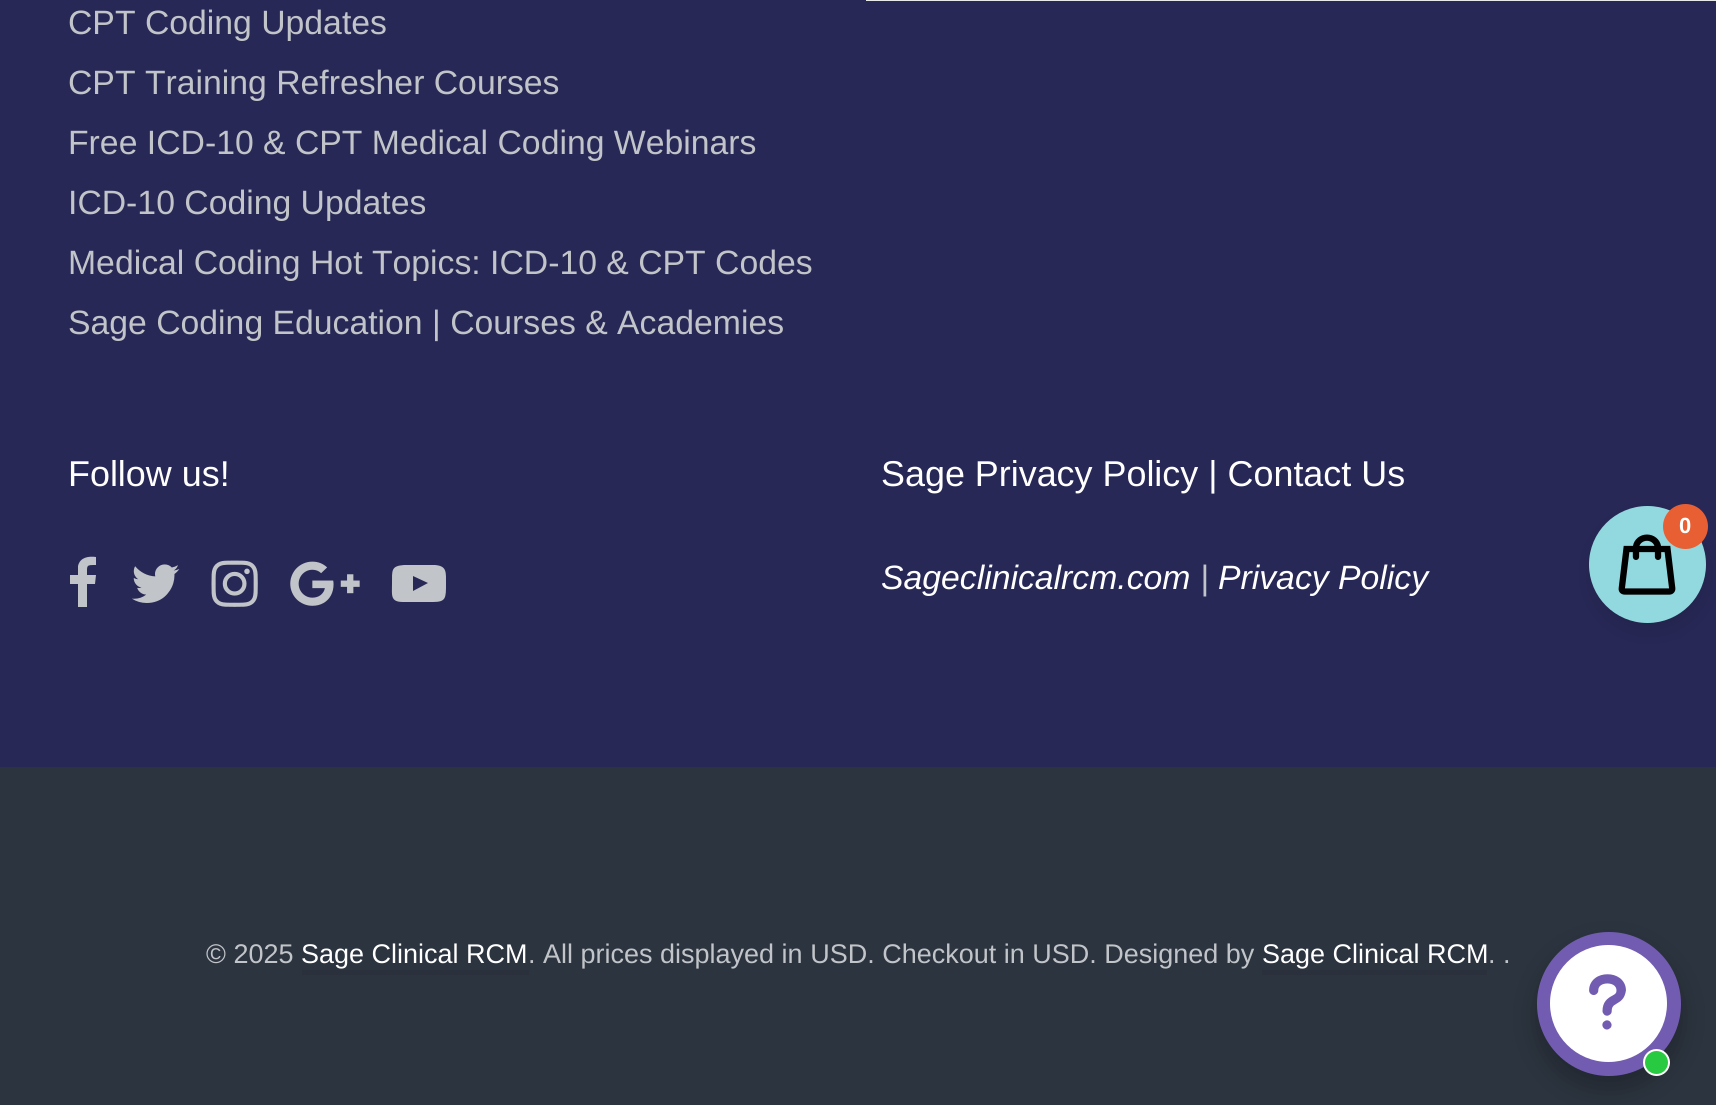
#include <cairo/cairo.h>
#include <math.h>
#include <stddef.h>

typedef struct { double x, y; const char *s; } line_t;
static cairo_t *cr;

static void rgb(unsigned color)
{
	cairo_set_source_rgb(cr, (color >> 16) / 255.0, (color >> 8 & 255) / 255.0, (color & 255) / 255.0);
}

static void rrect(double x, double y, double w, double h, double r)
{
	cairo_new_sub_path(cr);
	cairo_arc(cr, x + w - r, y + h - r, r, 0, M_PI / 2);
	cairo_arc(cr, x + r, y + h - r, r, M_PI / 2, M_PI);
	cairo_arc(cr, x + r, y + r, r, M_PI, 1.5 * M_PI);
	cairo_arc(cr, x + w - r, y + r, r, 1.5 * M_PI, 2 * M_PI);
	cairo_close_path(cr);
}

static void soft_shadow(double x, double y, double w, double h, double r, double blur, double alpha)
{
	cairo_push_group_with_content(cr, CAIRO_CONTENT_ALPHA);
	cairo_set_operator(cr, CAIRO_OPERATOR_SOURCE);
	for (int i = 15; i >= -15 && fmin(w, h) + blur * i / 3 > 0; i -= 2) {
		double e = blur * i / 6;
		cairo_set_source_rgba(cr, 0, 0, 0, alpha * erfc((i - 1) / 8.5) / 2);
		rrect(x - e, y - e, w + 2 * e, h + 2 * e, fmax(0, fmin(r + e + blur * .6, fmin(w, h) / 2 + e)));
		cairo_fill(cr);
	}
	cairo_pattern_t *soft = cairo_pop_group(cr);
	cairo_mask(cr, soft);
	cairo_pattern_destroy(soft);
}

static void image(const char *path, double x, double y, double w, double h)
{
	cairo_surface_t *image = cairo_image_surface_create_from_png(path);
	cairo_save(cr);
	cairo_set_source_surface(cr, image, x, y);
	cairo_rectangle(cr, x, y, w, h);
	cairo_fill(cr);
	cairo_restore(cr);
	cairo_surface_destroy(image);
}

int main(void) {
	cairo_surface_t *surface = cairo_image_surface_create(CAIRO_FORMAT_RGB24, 1716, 1105);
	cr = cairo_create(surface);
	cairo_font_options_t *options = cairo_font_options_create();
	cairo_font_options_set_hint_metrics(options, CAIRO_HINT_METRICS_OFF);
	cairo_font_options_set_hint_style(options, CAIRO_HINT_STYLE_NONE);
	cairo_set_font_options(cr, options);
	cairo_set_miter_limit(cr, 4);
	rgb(0x2c343f);
	cairo_paint(cr);
	rgb(0x272856);
	cairo_rectangle(cr, 0, 0, 1716, 767);
	cairo_fill(cr);
	rgb(0xe8e9eb);
	cairo_rectangle(cr, 866, 0, 850, 1);
	cairo_fill(cr);
	rgb(0xc1c4c8);
	cairo_new_path(cr);
	cairo_move_to(cr, 96, 557);
	cairo_line_to(cr, 96, 565);
	cairo_curve_to(cr, 86, 565, 87, 565, 87, 575);
	cairo_line_to(cr, 96, 575);
	cairo_line_to(cr, 95, 584);
	cairo_line_to(cr, 87, 584);
	cairo_line_to(cr, 87, 607);
	cairo_line_to(cr, 78, 607);
	cairo_line_to(cr, 78, 584);
	cairo_line_to(cr, 70, 584);
	cairo_line_to(cr, 70, 575);
	cairo_line_to(cr, 78, 575);
	cairo_line_to(cr, 78, 566);
	cairo_curve_to(cr, 80, 557, 89, 556, 96, 557);
	cairo_close_path(cr);
	cairo_fill(cr);
	image("img/1.png", 132, 564, 48, 39);
	image("img/2.png", 211, 560, 47, 47);
	image("img/3.png", 290, 561, 70, 45);
	cairo_new_path(cr);
	cairo_move_to(cr, 413, 591);
	cairo_line_to(cr, 428, 583);
	cairo_line_to(cr, 413, 576);
	cairo_close_path(cr);
	cairo_move_to(cr, 418, 565);
	cairo_line_to(cr, 435, 565);
	cairo_curve_to(cr, 447, 566, 446, 572, 446, 584);
	cairo_curve_to(cr, 446, 598, 446, 602, 433, 602);
	cairo_line_to(cr, 403, 602);
	cairo_curve_to(cr, 390, 602, 392, 595, 392, 584);
	cairo_curve_to(cr, 392, 570, 391, 566, 404, 565);
	cairo_close_path(cr);
	cairo_fill(cr);
	rgb(0x2a313c);
	cairo_rectangle(cr, 302, 970, 227, 5);
	cairo_fill(cr);
	cairo_rectangle(cr, 1262, 970, 225, 5);
	cairo_fill(cr);
	rgb(0x000000);
	soft_shadow(1591, 515, 117, 117, 58.5, 11, 0.12);
	rgb(0x92d8df);
	cairo_arc(cr, 1647.5, 564.5, 58.5, 0, 2 * M_PI);
	cairo_fill(cr);
	image("img/4.png", 1618, 534, 58, 61);
	rgb(0xe75f33);
	cairo_arc(cr, 1685.5, 526.5, 22.5, 0, 2 * M_PI);
	cairo_fill(cr);
	rgb(0x000000);
	soft_shadow(1537, 945, 144, 144, 72, 13.5, 0.25);
	rgb(0x725cb1);
	cairo_arc(cr, 1609, 1004, 72, 0, 2 * M_PI);
	cairo_fill(cr);
	rgb(0xffffff);
	cairo_arc(cr, 1608.5, 1003.5, 58.5, 0, 2 * M_PI);
	cairo_fill(cr);
	image("img/5.png", 1589, 974, 37, 56);
	rgb(0x27ca40);
	cairo_arc(cr, 1656.5, 1062.5, 12.5, 0, 2 * M_PI);
	cairo_fill_preserve(cr);
	rgb(0xffffff);
	cairo_stroke(cr);
	cairo_select_font_face(cr, "Liberation Sans", CAIRO_FONT_SLANT_NORMAL, CAIRO_FONT_WEIGHT_NORMAL);
	cairo_set_font_size(cr, 33.75);
	rgb(0xc1c4c8);
	{
		static const line_t items[] = {
			{68, 34, "CPT Coding Updates"},
			{68, 94, "CPT Training Refresher Courses"},
			{68, 154, "Free ICD-10 & CPT Medical Coding Webinars"},
			{68, 214, "ICD-10 Coding Updates"},
			{68, 274, "Medical Coding Hot Topics: ICD-10 & CPT Codes"},
			{68, 334, "Sage Coding Education | Courses & Academies"},
		};
		for (size_t i = 0; i < sizeof items / sizeof *items; i++) {
			cairo_move_to(cr, items[i].x, items[i].y);
			cairo_show_text(cr, items[i].s);
		}
	}
	cairo_set_font_size(cr, 35.9);
	rgb(0xffffff);
	cairo_move_to(cr, 68, 486);
	cairo_show_text(cr, "Follow us!");
	cairo_move_to(cr, 881, 486);
	cairo_show_text(cr, "Sage Privacy Policy | Contact Us");
	cairo_select_font_face(cr, "Liberation Sans", CAIRO_FONT_SLANT_ITALIC, CAIRO_FONT_WEIGHT_NORMAL);
	cairo_set_font_size(cr, 33.75);
	cairo_move_to(cr, 881, 589);
	cairo_show_text(cr, "Sageclinicalrcm.com");
	rgb(0xc1c4c8);
	cairo_move_to(cr, 1200, 589);
	cairo_show_text(cr, "|");
	rgb(0xffffff);
	cairo_move_to(cr, 1218, 589);
	cairo_show_text(cr, "Privacy Policy");
	cairo_select_font_face(cr, "Liberation Sans", CAIRO_FONT_SLANT_NORMAL, CAIRO_FONT_WEIGHT_NORMAL);
	cairo_set_font_size(cr, 27);
	rgb(0xc1c4c8);
	cairo_move_to(cr, 206, 963);
	cairo_show_text(cr, "© 2025");
	rgb(0xffffff);
	cairo_move_to(cr, 301, 963);
	cairo_show_text(cr, "Sage Clinical RCM");
	rgb(0xc1c4c8);
	cairo_move_to(cr, 528, 963);
	cairo_show_text(cr, ". All prices displayed in USD. Checkout in USD. Designed by");
	rgb(0xffffff);
	cairo_move_to(cr, 1262, 963);
	cairo_show_text(cr, "Sage Clinical RCM");
	rgb(0xc1c4c8);
	cairo_move_to(cr, 1488, 963);
	cairo_show_text(cr, ". .");
	cairo_select_font_face(cr, "Liberation Sans", CAIRO_FONT_SLANT_NORMAL, CAIRO_FONT_WEIGHT_BOLD);
	cairo_set_font_size(cr, 22);
	rgb(0xffffff);
	cairo_move_to(cr, 1679, 533);
	cairo_show_text(cr, "0");
	cairo_surface_write_to_png(surface, "page.png");
	cairo_font_options_destroy(options);
	cairo_destroy(cr);
	cairo_surface_destroy(surface);
	return 0;
}
